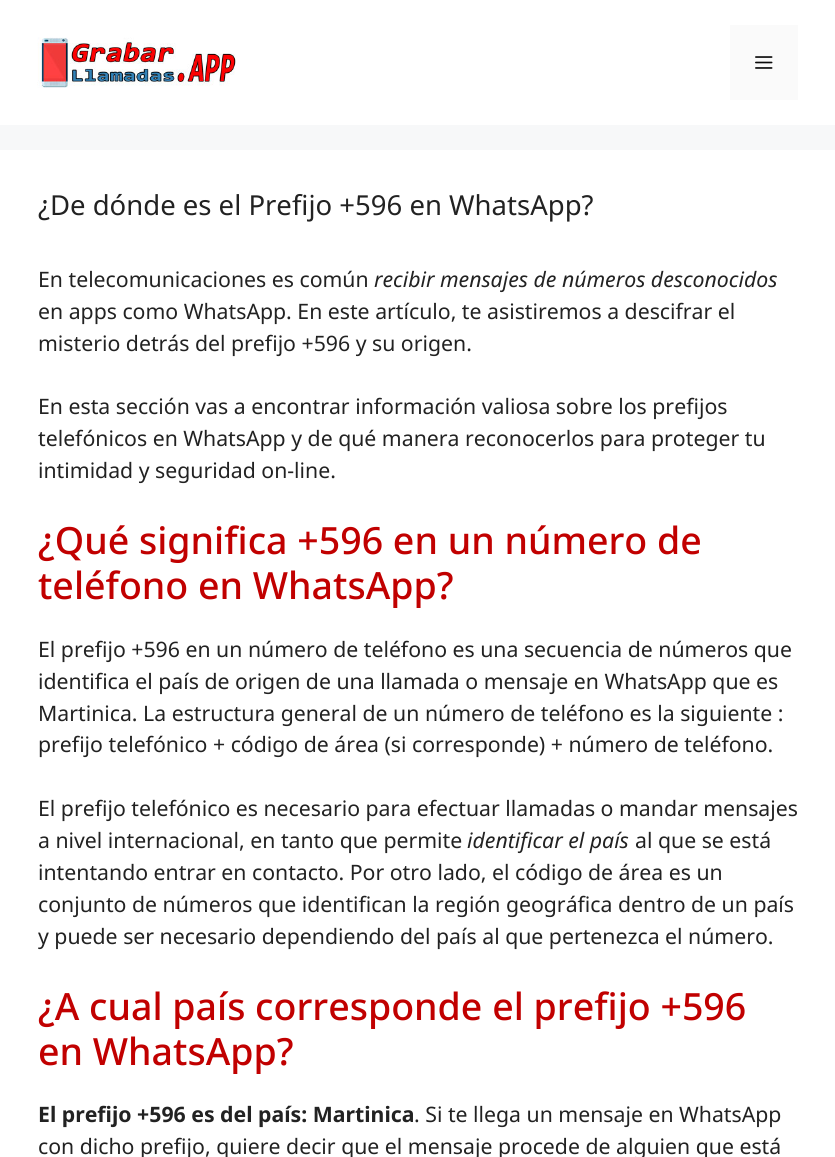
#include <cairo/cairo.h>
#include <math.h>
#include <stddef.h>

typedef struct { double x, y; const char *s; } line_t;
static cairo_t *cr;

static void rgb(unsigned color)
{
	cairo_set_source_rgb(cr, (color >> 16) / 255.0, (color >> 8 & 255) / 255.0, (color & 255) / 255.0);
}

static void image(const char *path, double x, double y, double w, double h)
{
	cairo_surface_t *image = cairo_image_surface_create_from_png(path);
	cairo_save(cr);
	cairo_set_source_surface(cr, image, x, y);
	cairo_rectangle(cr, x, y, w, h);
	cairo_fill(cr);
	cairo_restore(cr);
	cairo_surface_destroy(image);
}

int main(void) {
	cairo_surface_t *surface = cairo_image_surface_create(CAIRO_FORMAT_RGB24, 835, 1157);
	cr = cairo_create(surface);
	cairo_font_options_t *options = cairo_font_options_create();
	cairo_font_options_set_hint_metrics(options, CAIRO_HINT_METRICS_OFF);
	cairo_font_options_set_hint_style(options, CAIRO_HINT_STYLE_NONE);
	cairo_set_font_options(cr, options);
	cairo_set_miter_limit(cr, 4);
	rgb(0xf7f8f9);
	cairo_paint(cr);
	rgb(0xffffff);
	cairo_rectangle(cr, 0, 0, 835, 125);
	cairo_fill(cr);
	image("img/1.png", 37, 37, 199, 51);
	rgb(0xfafafa);
	cairo_rectangle(cr, 730, 25, 68, 75);
	cairo_fill(cr);
	image("img/2.png", 755, 56, 18, 13);
	rgb(0xffffff);
	cairo_rectangle(cr, 0, 150, 835, 1007);
	cairo_fill(cr);
	cairo_select_font_face(cr, "Noto Sans", CAIRO_FONT_SLANT_NORMAL, CAIRO_FONT_WEIGHT_NORMAL);
	cairo_set_font_size(cr, 27.5);
	rgb(0x222222);
	cairo_move_to(cr, 38, 215);
	cairo_show_text(cr, "¿De dónde es el Prefijo +596 en WhatsApp?");
	cairo_set_font_size(cr, 21.25);
	cairo_move_to(cr, 38, 287);
	cairo_show_text(cr, "En telecomunicaciones es común");
	cairo_select_font_face(cr, "Noto Sans", CAIRO_FONT_SLANT_ITALIC, CAIRO_FONT_WEIGHT_NORMAL);
	cairo_move_to(cr, 374, 287);
	cairo_show_text(cr, "recibir mensajes de números desconocidos");
	cairo_select_font_face(cr, "Noto Sans", CAIRO_FONT_SLANT_NORMAL, CAIRO_FONT_WEIGHT_NORMAL);
	{
		static const line_t items[] = {
			{38, 319, "en apps como WhatsApp. En este artículo, te asistiremos a descifrar el"},
			{38, 351, "misterio detrás del prefijo +596 y su origen."},
			{38, 414, "En esta sección vas a encontrar información valiosa sobre los prefijos"},
			{38, 446, "telefónicos en WhatsApp y de qué manera reconocerlos para proteger tu"},
			{38, 478, "intimidad y seguridad on-line."},
		};
		for (size_t i = 0; i < sizeof items / sizeof *items; i++) {
			cairo_move_to(cr, items[i].x, items[i].y);
			cairo_show_text(cr, items[i].s);
		}
	}
	cairo_select_font_face(cr, "Noto Sans Medium", CAIRO_FONT_SLANT_NORMAL, CAIRO_FONT_WEIGHT_NORMAL);
	cairo_set_font_size(cr, 37.5);
	rgb(0xc10000);
	cairo_move_to(cr, 38, 554);
	cairo_show_text(cr, "¿Qué significa +596 en un número de");
	cairo_move_to(cr, 38, 599);
	cairo_show_text(cr, "teléfono en WhatsApp?");
	cairo_select_font_face(cr, "Noto Sans", CAIRO_FONT_SLANT_NORMAL, CAIRO_FONT_WEIGHT_NORMAL);
	cairo_set_font_size(cr, 21.25);
	rgb(0x222222);
	{
		static const line_t items[] = {
			{38, 657, "El prefijo +596 en un número de teléfono es una secuencia de números que"},
			{38, 689, "identifica el país de origen de una llamada o mensaje en WhatsApp que es"},
			{38, 721, "Martinica. La estructura general de un número de teléfono es la siguiente :"},
			{38, 752, "prefijo telefónico + código de área (si corresponde) + número de teléfono."},
			{38, 816, "El prefijo telefónico es necesario para efectuar llamadas o mandar mensajes"},
			{38, 848, "a nivel internacional, en tanto que permite"},
		};
		for (size_t i = 0; i < sizeof items / sizeof *items; i++) {
			cairo_move_to(cr, items[i].x, items[i].y);
			cairo_show_text(cr, items[i].s);
		}
	}
	cairo_select_font_face(cr, "Noto Sans", CAIRO_FONT_SLANT_ITALIC, CAIRO_FONT_WEIGHT_NORMAL);
	cairo_move_to(cr, 467, 848);
	cairo_show_text(cr, "identificar el país");
	cairo_select_font_face(cr, "Noto Sans", CAIRO_FONT_SLANT_NORMAL, CAIRO_FONT_WEIGHT_NORMAL);
	{
		static const line_t items[] = {
			{635, 848, "al que se está"},
			{38, 880, "intentando entrar en contacto. Por otro lado, el código de área es un"},
			{38, 912, "conjunto de números que identifican la región geográfica dentro de un país"},
			{38, 944, "y puede ser necesario dependiendo del país al que pertenezca el número."},
		};
		for (size_t i = 0; i < sizeof items / sizeof *items; i++) {
			cairo_move_to(cr, items[i].x, items[i].y);
			cairo_show_text(cr, items[i].s);
		}
	}
	cairo_select_font_face(cr, "Noto Sans Medium", CAIRO_FONT_SLANT_NORMAL, CAIRO_FONT_WEIGHT_NORMAL);
	cairo_set_font_size(cr, 37.5);
	rgb(0xc10000);
	cairo_move_to(cr, 38, 1020);
	cairo_show_text(cr, "¿A cual país corresponde el prefijo +596");
	cairo_move_to(cr, 38, 1065);
	cairo_show_text(cr, "en WhatsApp?");
	cairo_select_font_face(cr, "Noto Sans", CAIRO_FONT_SLANT_NORMAL, CAIRO_FONT_WEIGHT_BOLD);
	cairo_set_font_size(cr, 21.25);
	rgb(0x222222);
	cairo_move_to(cr, 38, 1122);
	cairo_show_text(cr, "El prefijo +596 es del país: Martinica");
	cairo_select_font_face(cr, "Noto Sans", CAIRO_FONT_SLANT_NORMAL, CAIRO_FONT_WEIGHT_NORMAL);
	cairo_move_to(cr, 414, 1122);
	cairo_show_text(cr, ". Si te llega un mensaje en WhatsApp");
	cairo_move_to(cr, 38, 1154);
	cairo_show_text(cr, "con dicho prefijo, quiere decir que el mensaje procede de alguien que está");
	cairo_surface_write_to_png(surface, "page.png");
	cairo_font_options_destroy(options);
	cairo_destroy(cr);
	cairo_surface_destroy(surface);
	return 0;
}
